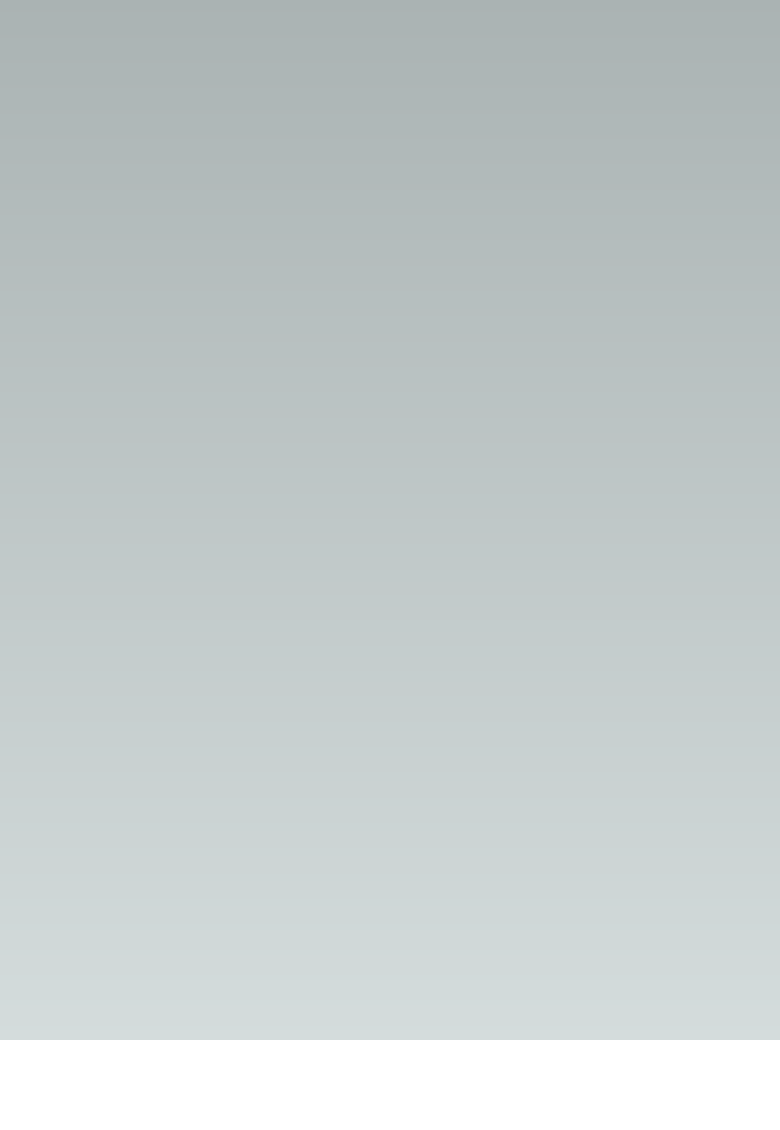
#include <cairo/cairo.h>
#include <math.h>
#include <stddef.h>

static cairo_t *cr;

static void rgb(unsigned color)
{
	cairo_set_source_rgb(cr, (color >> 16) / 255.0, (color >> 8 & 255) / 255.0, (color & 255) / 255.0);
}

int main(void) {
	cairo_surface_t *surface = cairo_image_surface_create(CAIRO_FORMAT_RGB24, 780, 1130);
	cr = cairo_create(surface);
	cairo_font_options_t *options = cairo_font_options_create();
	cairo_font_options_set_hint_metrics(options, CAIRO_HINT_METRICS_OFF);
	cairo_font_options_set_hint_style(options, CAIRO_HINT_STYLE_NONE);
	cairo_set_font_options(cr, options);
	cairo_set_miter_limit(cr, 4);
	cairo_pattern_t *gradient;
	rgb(0xffffff);
	cairo_paint(cr);
	gradient = cairo_pattern_create_linear(390, 0, 390, 1040);
	cairo_pattern_add_color_stop_rgba(gradient, 0, 0.667, 0.702, 0.702, 1);
	cairo_pattern_add_color_stop_rgba(gradient, 1, 0.831, 0.863, 0.863, 1);
	cairo_set_source(cr, gradient);
	cairo_pattern_destroy(gradient);
	cairo_rectangle(cr, 0, 0, 780, 1040);
	cairo_fill(cr);
	cairo_surface_write_to_png(surface, "page.png");
	cairo_font_options_destroy(options);
	cairo_destroy(cr);
	cairo_surface_destroy(surface);
	return 0;
}
